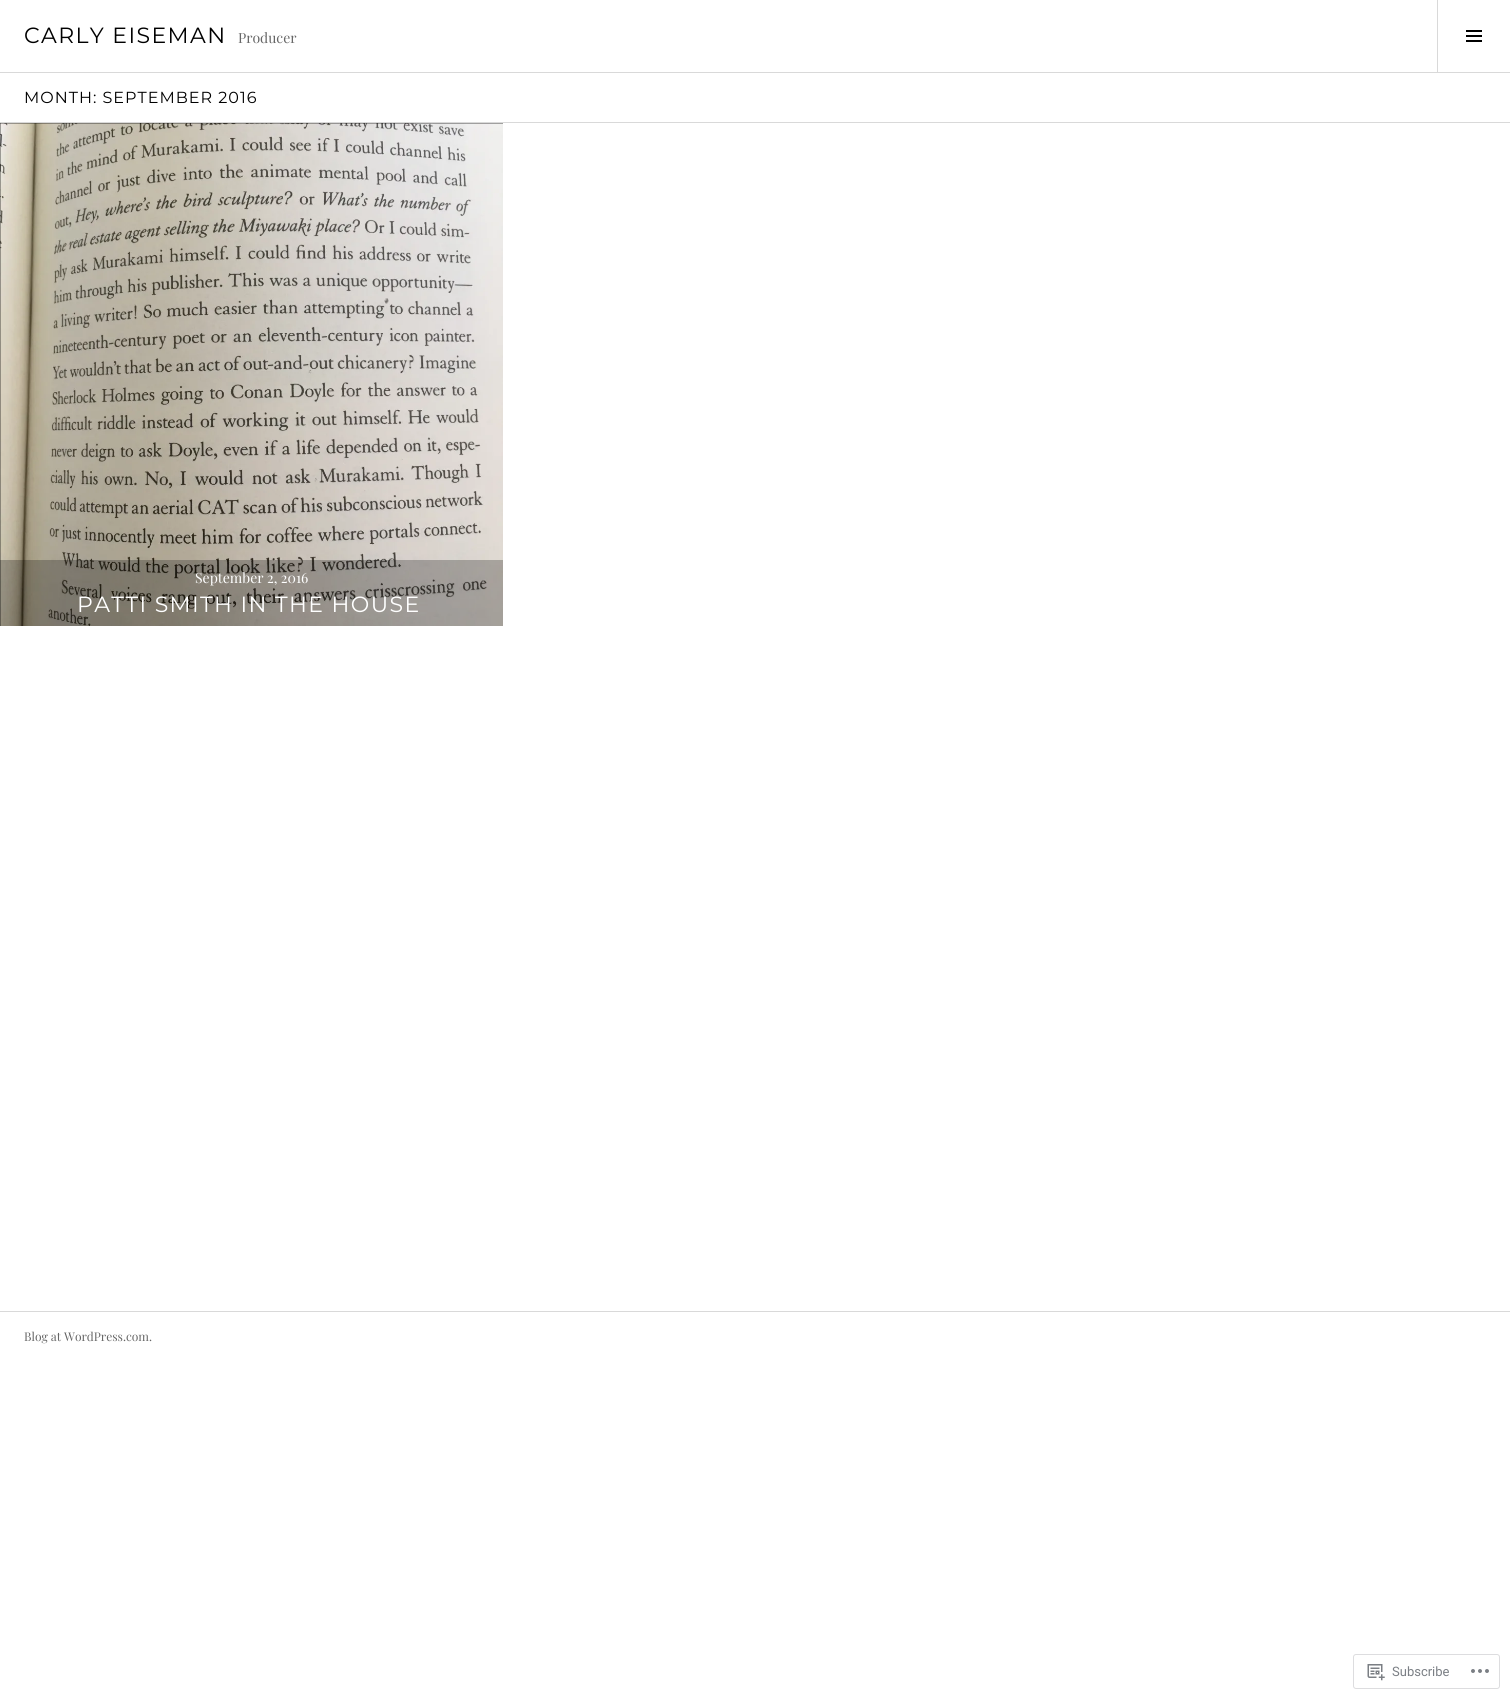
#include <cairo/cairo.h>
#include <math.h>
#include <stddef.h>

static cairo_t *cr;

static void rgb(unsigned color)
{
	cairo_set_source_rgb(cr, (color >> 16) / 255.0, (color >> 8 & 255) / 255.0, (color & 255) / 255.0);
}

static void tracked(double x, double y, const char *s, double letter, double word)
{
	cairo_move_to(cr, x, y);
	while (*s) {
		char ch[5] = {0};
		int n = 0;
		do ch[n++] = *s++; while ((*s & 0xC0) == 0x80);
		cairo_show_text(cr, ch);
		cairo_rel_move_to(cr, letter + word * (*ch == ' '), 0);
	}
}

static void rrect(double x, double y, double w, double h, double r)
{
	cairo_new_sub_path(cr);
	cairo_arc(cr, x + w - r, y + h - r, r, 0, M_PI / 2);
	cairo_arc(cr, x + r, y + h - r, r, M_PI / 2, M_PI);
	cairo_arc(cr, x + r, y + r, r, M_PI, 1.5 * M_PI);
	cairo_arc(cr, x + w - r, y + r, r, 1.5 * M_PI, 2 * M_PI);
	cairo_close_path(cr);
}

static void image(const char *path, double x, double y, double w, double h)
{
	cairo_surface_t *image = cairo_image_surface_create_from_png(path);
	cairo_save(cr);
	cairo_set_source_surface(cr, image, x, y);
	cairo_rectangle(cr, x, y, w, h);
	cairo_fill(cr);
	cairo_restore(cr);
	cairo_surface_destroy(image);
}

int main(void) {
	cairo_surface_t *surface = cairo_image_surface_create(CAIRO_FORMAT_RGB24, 1510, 1699);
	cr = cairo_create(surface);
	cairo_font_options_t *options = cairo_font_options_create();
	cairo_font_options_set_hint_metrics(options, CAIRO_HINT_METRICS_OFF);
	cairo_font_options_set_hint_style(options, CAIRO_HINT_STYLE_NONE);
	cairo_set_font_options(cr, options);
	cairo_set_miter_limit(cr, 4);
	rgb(0xffffff);
	cairo_paint(cr);
	rgb(0xd9d9d9);
	cairo_rectangle(cr, 0, 72, 1510, 1);
	cairo_fill(cr);
	cairo_rectangle(cr, 1437, 0, 1, 72);
	cairo_fill(cr);
	image("img/1.png", 1466, 30, 16, 12);
	cairo_rectangle(cr, 0, 122, 1510, 1);
	cairo_fill(cr);
	rgb(0x000000);
	cairo_rectangle(cr, 0, 123, 503, 503);
	cairo_fill(cr);
	image("img/2.png", 0, 123, 503, 503);
	cairo_set_source_rgba(cr, 0, 0, 0, 0.25);
	cairo_rectangle(cr, 0, 560, 503, 66);
	cairo_fill(cr);
	rgb(0xd9d9d9);
	cairo_rectangle(cr, 0, 1311, 1510, 1);
	cairo_fill(cr);
	rrect(1353.5, 1654.5, 146, 34, 2.5);
	rgb(0xdddddf);
	cairo_set_line_width(cr, 1);
	cairo_stroke(cr);
	image("img/3.png", 1367, 1664, 18, 17);
	image("img/4.png", 1471, 1669, 18, 4);
	cairo_select_font_face(cr, "Montserrat", CAIRO_FONT_SLANT_NORMAL, CAIRO_FONT_WEIGHT_NORMAL);
	cairo_set_font_size(cr, 22);
	rgb(0x000000);
	tracked(24, 43, "CARLY EISEMAN", 1.4, 0);
	cairo_select_font_face(cr, "Playfair Display", CAIRO_FONT_SLANT_NORMAL, CAIRO_FONT_WEIGHT_NORMAL);
	cairo_set_font_size(cr, 14);
	rgb(0x666666);
	cairo_move_to(cr, 238, 43);
	cairo_show_text(cr, "Producer");
	cairo_select_font_face(cr, "Montserrat", CAIRO_FONT_SLANT_NORMAL, CAIRO_FONT_WEIGHT_NORMAL);
	cairo_set_font_size(cr, 16);
	rgb(0x000000);
	tracked(24, 103, "MONTH: SEPTEMBER 2016", 1, 0);
	cairo_select_font_face(cr, "Playfair Display", CAIRO_FONT_SLANT_NORMAL, CAIRO_FONT_WEIGHT_NORMAL);
	cairo_set_font_size(cr, 14);
	rgb(0xffffff);
	cairo_move_to(cr, 195, 583);
	cairo_show_text(cr, "September 2, 2016");
	cairo_select_font_face(cr, "Montserrat", CAIRO_FONT_SLANT_NORMAL, CAIRO_FONT_WEIGHT_NORMAL);
	cairo_set_font_size(cr, 22);
	tracked(77, 612, "PATTI SMITH IN THE HOUSE", 1.4, 0);
	cairo_select_font_face(cr, "Playfair Display", CAIRO_FONT_SLANT_NORMAL, CAIRO_FONT_WEIGHT_NORMAL);
	cairo_set_font_size(cr, 12);
	rgb(0x666666);
	cairo_move_to(cr, 24, 1341);
	cairo_show_text(cr, "Blog at WordPress.com.");
	cairo_select_font_face(cr, "Roboto", CAIRO_FONT_SLANT_NORMAL, CAIRO_FONT_WEIGHT_NORMAL);
	cairo_set_font_size(cr, 13);
	rgb(0x7b7f85);
	cairo_move_to(cr, 1392, 1676);
	cairo_show_text(cr, "Subscribe");
	cairo_surface_write_to_png(surface, "page.png");
	cairo_font_options_destroy(options);
	cairo_destroy(cr);
	cairo_surface_destroy(surface);
	return 0;
}
